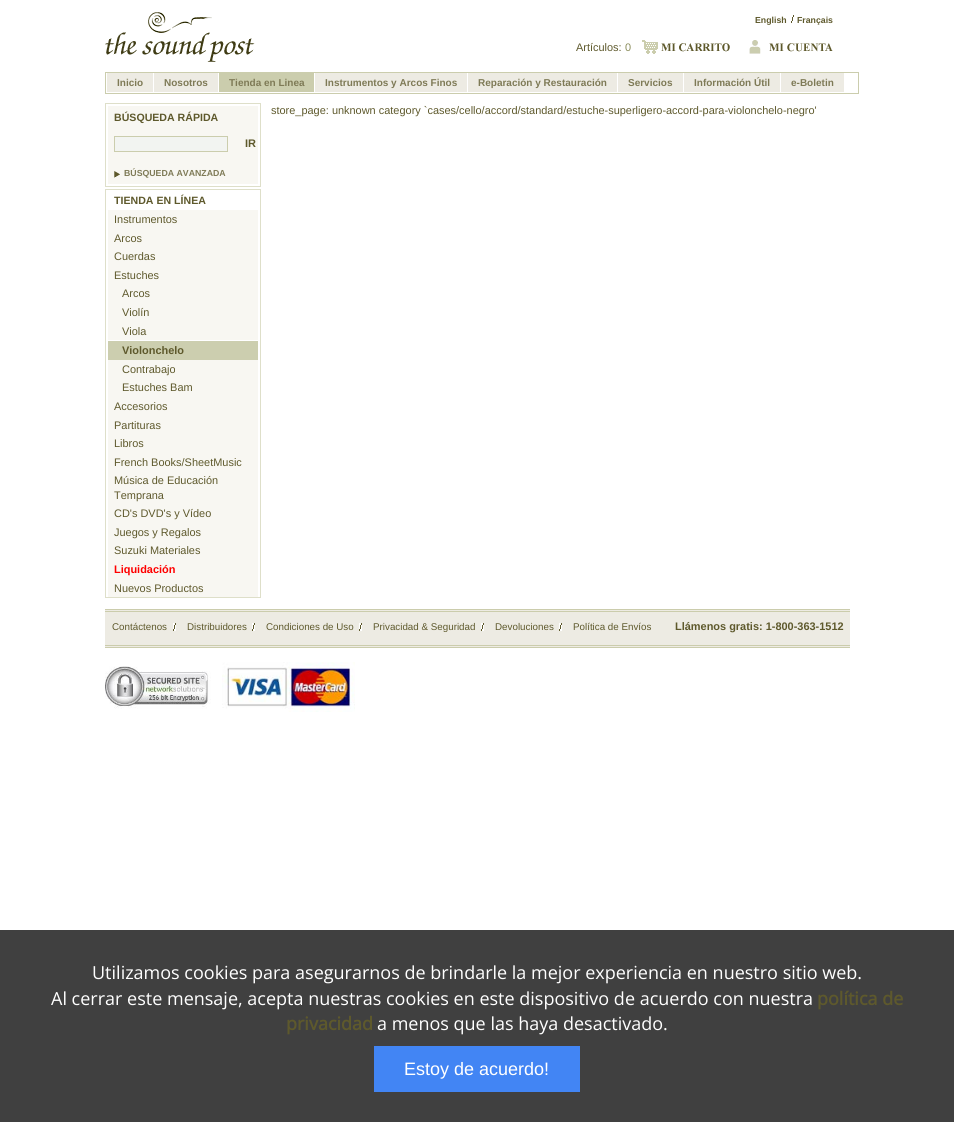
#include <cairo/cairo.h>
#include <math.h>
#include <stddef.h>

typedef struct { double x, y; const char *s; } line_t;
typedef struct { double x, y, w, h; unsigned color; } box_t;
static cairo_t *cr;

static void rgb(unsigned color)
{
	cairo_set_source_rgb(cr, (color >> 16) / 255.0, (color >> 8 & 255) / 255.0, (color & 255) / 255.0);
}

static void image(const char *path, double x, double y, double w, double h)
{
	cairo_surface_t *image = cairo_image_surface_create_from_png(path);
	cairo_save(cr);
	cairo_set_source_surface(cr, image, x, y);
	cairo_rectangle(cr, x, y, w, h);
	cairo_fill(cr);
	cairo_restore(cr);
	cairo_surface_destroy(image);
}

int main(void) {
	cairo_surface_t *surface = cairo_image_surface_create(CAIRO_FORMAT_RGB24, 954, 1122);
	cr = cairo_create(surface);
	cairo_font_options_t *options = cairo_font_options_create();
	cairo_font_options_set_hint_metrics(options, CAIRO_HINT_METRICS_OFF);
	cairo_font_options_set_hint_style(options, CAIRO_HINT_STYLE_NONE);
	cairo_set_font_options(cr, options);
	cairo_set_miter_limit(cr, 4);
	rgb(0xffffff);
	cairo_paint(cr);
	image("img/1.png", 105, 12, 150, 50);
	image("img/2.png", 791, 15, 3, 8);
	image("img/3.png", 642, 40, 88, 14);
	image("img/4.png", 749, 40, 84, 14);
	cairo_rectangle(cr, 105.5, 72.5, 753, 21);
	rgb(0xcbcdad);
	cairo_set_line_width(cr, 1);
	cairo_stroke(cr);
	{
		static const box_t items[] = {
			{107, 73, 46, 19, 0xedebe3},
			{154, 73, 64, 19, 0xedebe3},
			{219, 73, 95, 19, 0xcbcdad},
			{315, 73, 152, 19, 0xedebe3},
			{468, 73, 149, 19, 0xedebe3},
			{618, 73, 65, 19, 0xedebe3},
			{684, 73, 96, 19, 0xedebe3},
			{781, 73, 63, 19, 0xedebe3},
		};
		for (size_t i = 0; i < sizeof items / sizeof *items; i++) {
			rgb(items[i].color);
			cairo_rectangle(cr, items[i].x, items[i].y, items[i].w, items[i].h);
			cairo_fill(cr);
		}
	}
	cairo_rectangle(cr, 105.5, 103.5, 155, 83);
	rgb(0xdedfc9);
	cairo_stroke(cr);
	rgb(0xf8f7f2);
	cairo_rectangle(cr, 108, 106, 150, 78);
	cairo_fill(cr);
	rgb(0xf2f4f1);
	cairo_rectangle(cr, 114.5, 136.5, 113, 15);
	cairo_fill_preserve(cr);
	rgb(0xcbcdad);
	cairo_stroke(cr);
	image("img/5.png", 114, 171, 6, 7);
	cairo_rectangle(cr, 105.5, 189.5, 155, 408);
	rgb(0xdedfc9);
	cairo_stroke(cr);
	{
		static const box_t items[] = {
			{108, 210, 150, 387, 0xf8f7f2},
			{108, 341, 150, 19, 0xccceaf},
			{108, 340, 150, 1, 0xffffff},
			{105, 610, 745, 37, 0xedebe3},
			{105, 609, 745, 1, 0xcbccac},
			{105, 611, 745, 1, 0xcbccac},
			{105, 645, 745, 1, 0xcbccac},
			{105, 647, 745, 1, 0xcbccac},
		};
		for (size_t i = 0; i < sizeof items / sizeof *items; i++) {
			rgb(items[i].color);
			cairo_rectangle(cr, items[i].x, items[i].y, items[i].w, items[i].h);
			cairo_fill(cr);
		}
	}
	image("img/2.png", 173, 623, 3, 8);
	image("img/2.png", 252, 623, 3, 8);
	image("img/2.png", 359, 623, 3, 8);
	image("img/2.png", 481, 623, 3, 8);
	image("img/2.png", 559, 623, 3, 8);
	image("img/6.png", 105, 666, 106, 43);
	image("img/7.png", 222, 662, 133, 50);
	rgb(0x404040);
	cairo_rectangle(cr, 0, 930, 954, 192);
	cairo_fill(cr);
	rgb(0x4285f4);
	cairo_rectangle(cr, 374, 1046, 206, 46);
	cairo_fill(cr);
	cairo_select_font_face(cr, "Liberation Sans", CAIRO_FONT_SLANT_NORMAL, CAIRO_FONT_WEIGHT_BOLD);
	cairo_set_font_size(cr, 8.75);
	rgb(0x5e592c);
	cairo_move_to(cr, 755, 23);
	cairo_show_text(cr, "English");
	cairo_move_to(cr, 797, 23);
	cairo_show_text(cr, "Français");
	cairo_select_font_face(cr, "Liberation Sans", CAIRO_FONT_SLANT_NORMAL, CAIRO_FONT_WEIGHT_NORMAL);
	cairo_set_font_size(cr, 10.95);
	cairo_move_to(cr, 576, 51);
	cairo_show_text(cr, "Artículos:");
	rgb(0x8a8c5a);
	cairo_move_to(cr, 625, 51);
	cairo_show_text(cr, "0");
	cairo_select_font_face(cr, "Liberation Sans", CAIRO_FONT_SLANT_NORMAL, CAIRO_FONT_WEIGHT_BOLD);
	cairo_set_font_size(cr, 10);
	rgb(0x7e7a56);
	{
		static const line_t items[] = {
			{117, 86, "Inicio"},
			{164, 86, "Nosotros"},
			{229, 86, "Tienda en Linea"},
			{325, 86, "Instrumentos y Arcos Finos"},
			{478, 86, "Reparación y Restauración"},
			{628, 86, "Servicios"},
			{694, 86, "Información Útil"},
			{791, 86, "e-Boletin"},
		};
		for (size_t i = 0; i < sizeof items / sizeof *items; i++) {
			cairo_move_to(cr, items[i].x, items[i].y);
			cairo_show_text(cr, items[i].s);
		}
	}
	cairo_set_font_size(cr, 10.6);
	rgb(0x5e592c);
	cairo_move_to(cr, 114, 121);
	cairo_show_text(cr, "BÚSQUEDA RÁPIDA");
	cairo_set_font_size(cr, 11);
	cairo_move_to(cr, 245, 147);
	cairo_show_text(cr, "IR");
	cairo_set_font_size(cr, 8.75);
	rgb(0x7e7a56);
	cairo_move_to(cr, 124, 176);
	cairo_show_text(cr, "BÚSQUEDA AVANZADA");
	cairo_set_font_size(cr, 10.6);
	rgb(0x5e592c);
	cairo_move_to(cr, 114, 204);
	cairo_show_text(cr, "TIENDA EN LÍNEA");
	cairo_select_font_face(cr, "Liberation Sans", CAIRO_FONT_SLANT_NORMAL, CAIRO_FONT_WEIGHT_NORMAL);
	cairo_set_font_size(cr, 10.95);
	{
		static const line_t items[] = {
			{114, 223, "Instrumentos"},
			{114, 242, "Arcos"},
			{114, 260, "Cuerdas"},
			{114, 279, "Estuches"},
			{122, 297, "Arcos"},
			{122, 316, "Violín"},
			{122, 335, "Viola"},
		};
		for (size_t i = 0; i < sizeof items / sizeof *items; i++) {
			cairo_move_to(cr, items[i].x, items[i].y);
			cairo_show_text(cr, items[i].s);
		}
	}
	cairo_select_font_face(cr, "Liberation Sans", CAIRO_FONT_SLANT_NORMAL, CAIRO_FONT_WEIGHT_BOLD);
	cairo_move_to(cr, 122, 354);
	cairo_show_text(cr, "Violonchelo");
	cairo_select_font_face(cr, "Liberation Sans", CAIRO_FONT_SLANT_NORMAL, CAIRO_FONT_WEIGHT_NORMAL);
	{
		static const line_t items[] = {
			{122, 373, "Contrabajo"},
			{122, 391, "Estuches Bam"},
			{114, 410, "Accesorios"},
			{114, 429, "Partituras"},
			{114, 447, "Libros"},
			{114, 466, "French Books/SheetMusic"},
			{114, 484, "Música de Educación"},
			{114, 499, "Temprana"},
			{114, 517, "CD's DVD's y Vídeo"},
			{114, 536, "Juegos y Regalos"},
			{114, 554, "Suzuki Materiales"},
		};
		for (size_t i = 0; i < sizeof items / sizeof *items; i++) {
			cairo_move_to(cr, items[i].x, items[i].y);
			cairo_show_text(cr, items[i].s);
		}
	}
	cairo_select_font_face(cr, "Liberation Sans", CAIRO_FONT_SLANT_NORMAL, CAIRO_FONT_WEIGHT_BOLD);
	rgb(0xff0000);
	cairo_move_to(cr, 114, 573);
	cairo_show_text(cr, "Liquidación");
	cairo_select_font_face(cr, "Liberation Sans", CAIRO_FONT_SLANT_NORMAL, CAIRO_FONT_WEIGHT_NORMAL);
	rgb(0x5e592c);
	cairo_move_to(cr, 114, 592);
	cairo_show_text(cr, "Nuevos Productos");
	cairo_move_to(cr, 271, 114);
	cairo_show_text(cr, "store_page: unknown category `cases/cello/accord/standard/estuche-superligero-accord-para-violonchelo-negro'");
	cairo_set_font_size(cr, 9.8);
	{
		static const line_t items[] = {
			{112, 630, "Contáctenos"},
			{187, 630, "Distribuidores"},
			{266, 630, "Condiciones de Uso"},
			{373, 630, "Privacidad & Seguridad"},
			{495, 630, "Devoluciones"},
			{573, 630, "Política de Envíos"},
		};
		for (size_t i = 0; i < sizeof items / sizeof *items; i++) {
			cairo_move_to(cr, items[i].x, items[i].y);
			cairo_show_text(cr, items[i].s);
		}
	}
	cairo_select_font_face(cr, "Liberation Sans", CAIRO_FONT_SLANT_NORMAL, CAIRO_FONT_WEIGHT_BOLD);
	cairo_set_font_size(cr, 10.95);
	cairo_move_to(cr, 675, 630);
	cairo_show_text(cr, "Llámenos gratis: 1-800-363-1512");
	cairo_select_font_face(cr, "Open Sans", CAIRO_FONT_SLANT_NORMAL, CAIRO_FONT_WEIGHT_NORMAL);
	cairo_set_font_size(cr, 18);
	rgb(0xffffff);
	cairo_move_to(cr, 92, 979);
	cairo_show_text(cr, "Utilizamos cookies para asegurarnos de brindarle la mejor experiencia en nuestro sitio web.");
	cairo_move_to(cr, 51, 1005);
	cairo_show_text(cr, "Al cerrar este mensaje, acepta nuestras cookies en este dispositivo de acuerdo con nuestra");
	cairo_select_font_face(cr, "Open Sans", CAIRO_FONT_SLANT_NORMAL, CAIRO_FONT_WEIGHT_BOLD);
	rgb(0x5e592c);
	cairo_move_to(cr, 817, 1005);
	cairo_show_text(cr, "política de");
	cairo_move_to(cr, 286, 1030);
	cairo_show_text(cr, "privacidad");
	cairo_select_font_face(cr, "Open Sans", CAIRO_FONT_SLANT_NORMAL, CAIRO_FONT_WEIGHT_NORMAL);
	rgb(0xffffff);
	cairo_move_to(cr, 377, 1030);
	cairo_show_text(cr, "a menos que las haya desactivado.");
	cairo_select_font_face(cr, "Liberation Sans", CAIRO_FONT_SLANT_NORMAL, CAIRO_FONT_WEIGHT_NORMAL);
	cairo_move_to(cr, 404, 1075);
	cairo_show_text(cr, "Estoy de acuerdo!");
	cairo_surface_write_to_png(surface, "page.png");
	cairo_font_options_destroy(options);
	cairo_destroy(cr);
	cairo_surface_destroy(surface);
	return 0;
}
